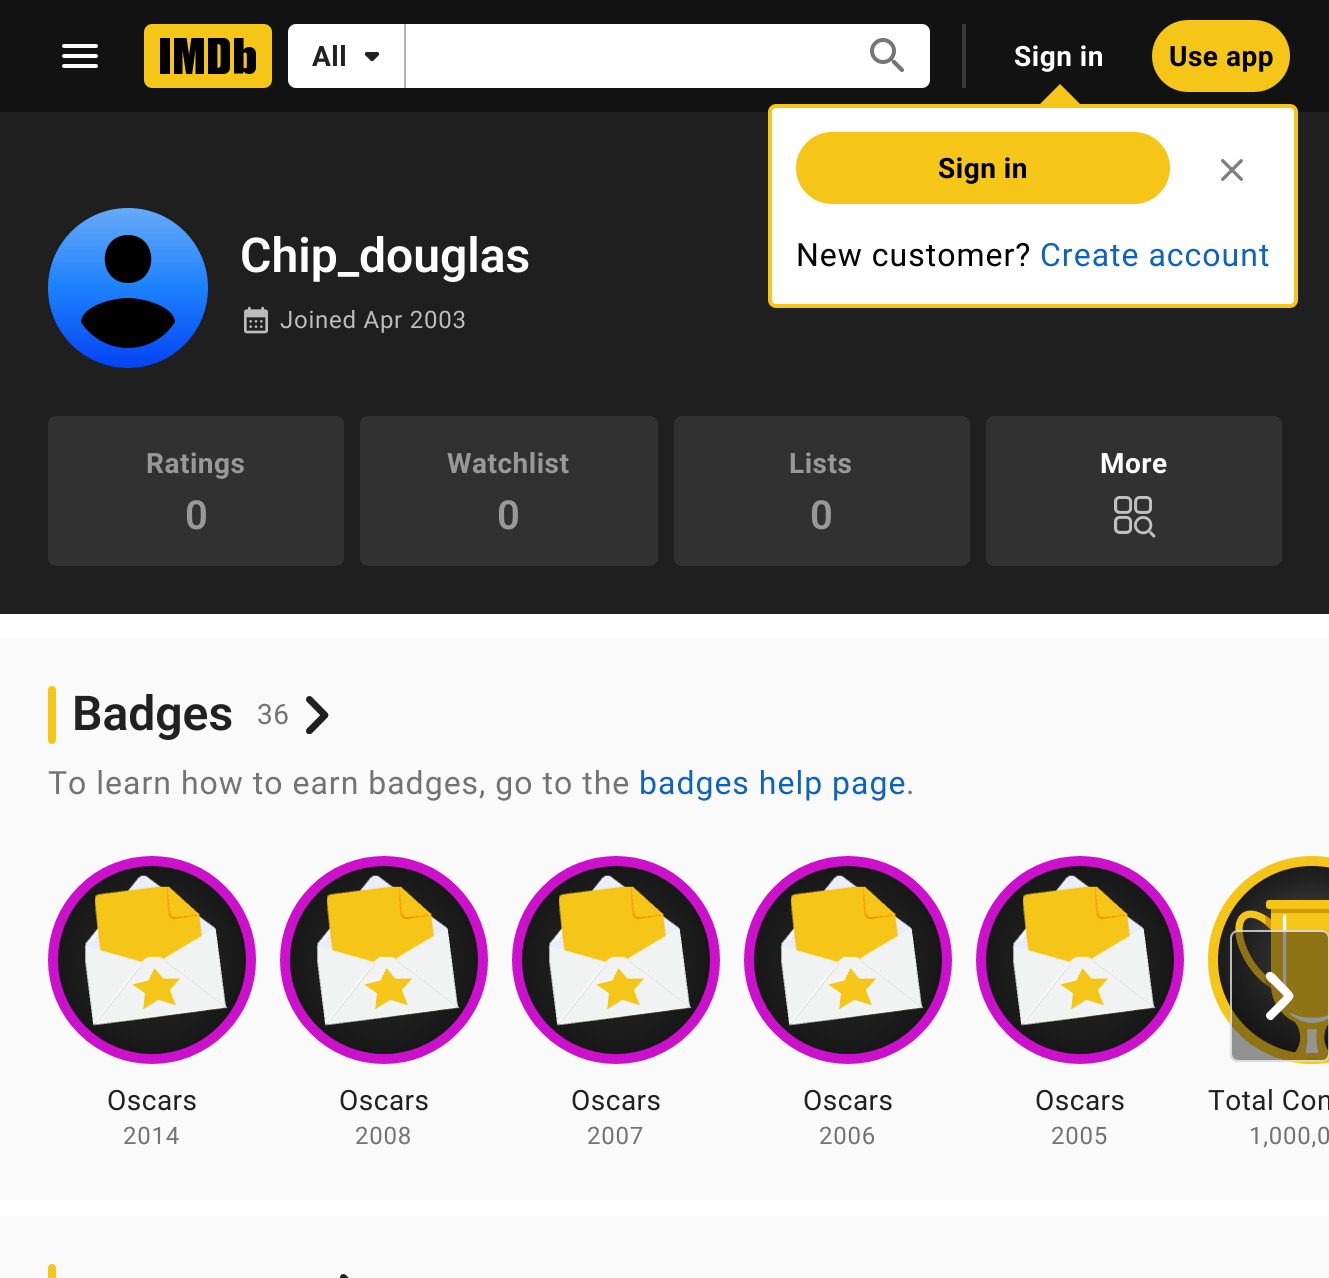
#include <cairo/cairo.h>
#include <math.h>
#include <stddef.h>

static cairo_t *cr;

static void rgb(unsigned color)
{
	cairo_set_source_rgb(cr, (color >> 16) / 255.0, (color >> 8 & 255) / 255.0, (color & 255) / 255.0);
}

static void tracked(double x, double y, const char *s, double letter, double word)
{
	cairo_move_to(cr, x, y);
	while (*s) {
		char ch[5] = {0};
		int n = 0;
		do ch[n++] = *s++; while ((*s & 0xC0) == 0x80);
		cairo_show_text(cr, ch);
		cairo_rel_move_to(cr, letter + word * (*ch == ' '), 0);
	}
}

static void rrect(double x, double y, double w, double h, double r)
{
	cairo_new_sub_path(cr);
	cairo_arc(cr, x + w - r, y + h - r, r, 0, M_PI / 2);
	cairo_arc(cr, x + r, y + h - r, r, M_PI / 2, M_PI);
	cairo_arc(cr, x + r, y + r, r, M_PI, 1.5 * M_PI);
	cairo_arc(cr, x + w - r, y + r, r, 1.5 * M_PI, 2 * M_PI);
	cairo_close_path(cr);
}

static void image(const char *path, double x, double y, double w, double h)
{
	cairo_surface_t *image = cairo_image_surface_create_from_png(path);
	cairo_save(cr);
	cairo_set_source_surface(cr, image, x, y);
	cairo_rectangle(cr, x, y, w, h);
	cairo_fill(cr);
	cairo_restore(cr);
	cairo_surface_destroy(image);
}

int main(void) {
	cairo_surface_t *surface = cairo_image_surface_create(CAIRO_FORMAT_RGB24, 1329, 1278);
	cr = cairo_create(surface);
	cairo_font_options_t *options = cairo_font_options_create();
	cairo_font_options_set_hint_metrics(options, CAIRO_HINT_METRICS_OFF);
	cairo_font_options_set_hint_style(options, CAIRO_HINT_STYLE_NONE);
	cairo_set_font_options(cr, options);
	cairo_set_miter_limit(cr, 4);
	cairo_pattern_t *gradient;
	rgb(0xffffff);
	cairo_paint(cr);
	rgb(0x121212);
	cairo_rectangle(cr, 0, 0, 1329, 112);
	cairo_fill(cr);
	image("img/1.png", 62, 44, 36, 24);
	image("img/2.png", 144, 24, 128, 64);
	rgb(0xffffff);
	rrect(288, 24, 642, 64, 8);
	cairo_fill(cr);
	rgb(0xb3b3b3);
	cairo_rectangle(cr, 404, 24, 2, 64);
	cairo_fill(cr);
	image("img/3.png", 364, 52, 16, 10);
	image("img/4.png", 870, 38, 34, 34);
	rgb(0x383838);
	cairo_rectangle(cr, 962, 24, 4, 64);
	cairo_fill(cr);
	rgb(0x1f1f1f);
	cairo_rectangle(cr, 0, 112, 1329, 502);
	cairo_fill(cr);
	rgb(0xffffff);
	rrect(770, 106, 526, 200, 6);
	cairo_fill_preserve(cr);
	rgb(0xf5c518);
	cairo_set_line_width(cr, 4);
	cairo_stroke(cr);
	cairo_new_path(cr);
	cairo_move_to(cr, 1036, 108);
	cairo_line_to(cr, 1084, 108);
	cairo_line_to(cr, 1060, 84);
	cairo_close_path(cr);
	cairo_fill(cr);
	rrect(796, 132, 374, 72, 36);
	cairo_fill(cr);
	image("img/5.png", 1221, 159, 22, 22);
	rrect(1152, 20, 138, 72, 36);
	cairo_fill(cr);
	gradient = cairo_pattern_create_linear(128, 208, 128, 368);
	cairo_pattern_add_color_stop_rgba(gradient, 0, 0.404, 0.667, 0.976, 1);
	cairo_pattern_add_color_stop_rgba(gradient, 0.5, 0.11, 0.506, 0.992, 1);
	cairo_pattern_add_color_stop_rgba(gradient, 1, 0.016, 0.259, 0.957, 1);
	cairo_set_source(cr, gradient);
	cairo_pattern_destroy(gradient);
	cairo_arc(cr, 128, 288, 80, 0, 2 * M_PI);
	cairo_fill(cr);
	rgb(0x000000);
	cairo_new_path(cr);
	cairo_move_to(cr, 128, 235);
	cairo_curve_to(cr, 159, 235, 159, 283, 128, 283);
	cairo_curve_to(cr, 97, 283, 97, 235, 128, 235);
	cairo_close_path(cr);
	cairo_move_to(cr, 128, 348);
	cairo_curve_to(cr, 109, 348, 91, 338, 81, 322);
	cairo_curve_to(cr, 82, 306, 112, 298, 128, 298);
	cairo_curve_to(cr, 143, 298, 174, 306, 175, 322);
	cairo_curve_to(cr, 165, 338, 147, 348, 128, 348);
	cairo_close_path(cr);
	cairo_fill(cr);
	image("img/6.png", 244, 306, 24, 28);
	rgb(0x313131);
	rrect(48, 416, 296, 150, 8);
	cairo_fill(cr);
	rrect(360, 416, 298, 150, 8);
	cairo_fill(cr);
	rrect(674, 416, 296, 150, 8);
	cairo_fill(cr);
	rrect(986, 416, 296, 150, 8);
	cairo_fill(cr);
	image("img/7.png", 1114, 496, 42, 42);
	rgb(0xfafafa);
	cairo_rectangle(cr, 0, 638, 1329, 562);
	cairo_fill(cr);
	rgb(0xf5c518);
	rrect(48, 686, 8, 58, 4);
	cairo_fill(cr);
	image("img/8.png", 306, 696, 23, 38);
	image("img/14.png", 1208, 856, 121, 208);
	cairo_set_source_rgba(cr, 0.071, 0.071, 0.071, 0.45);
	rrect(1230, 930, 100, 132, 8);
	cairo_fill(cr);
	rrect(1231, 931, 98, 130, 7);
	cairo_set_source_rgba(cr, 1, 1, 1, 0.7);
	cairo_set_line_width(cr, 2);
	cairo_stroke(cr);
	rgb(0xffffff);
	cairo_new_path(cr);
	cairo_move_to(cr, 1267, 973);
	cairo_curve_to(cr, 1263, 978, 1270, 982, 1273, 985);
	cairo_line_to(cr, 1284, 996);
	cairo_line_to(cr, 1267, 1013);
	cairo_curve_to(cr, 1264, 1016, 1268, 1021, 1272, 1020);
	cairo_line_to(cr, 1286, 1006);
	cairo_curve_to(cr, 1296, 995, 1296, 997, 1286, 986);
	cairo_line_to(cr, 1280, 980);
	cairo_curve_to(cr, 1277, 977, 1272, 969, 1267, 973);
	cairo_close_path(cr);
	cairo_fill(cr);
	image("img/9.png", 48, 856, 208, 208);
	image("img/10.png", 280, 856, 208, 208);
	image("img/11.png", 512, 856, 208, 208);
	image("img/12.png", 744, 856, 208, 208);
	image("img/13.png", 976, 856, 208, 208);
	rgb(0xfafafa);
	cairo_rectangle(cr, 0, 1216, 1329, 62);
	cairo_fill(cr);
	rgb(0xf5c518);
	rrect(48, 1264, 8, 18, 4);
	cairo_fill(cr);
	image("img/15.png", 340, 1274, 9, 4);
	cairo_select_font_face(cr, "Roboto", CAIRO_FONT_SLANT_NORMAL, CAIRO_FONT_WEIGHT_BOLD);
	cairo_set_font_size(cr, 28);
	rgb(0x212121);
	tracked(312, 66, "All", 0.5, 0);
	rgb(0xffffff);
	tracked(1014, 66, "Sign in", 0.5, 0);
	rgb(0x000000);
	tracked(938, 178, "Sign in", 0.5, 0);
	cairo_select_font_face(cr, "Roboto", CAIRO_FONT_SLANT_NORMAL, CAIRO_FONT_WEIGHT_NORMAL);
	cairo_set_font_size(cr, 32);
	tracked(796, 266, "New customer?", 1, 0);
	rgb(0x0e63be);
	tracked(1040, 266, "Create account", 1, 0);
	cairo_select_font_face(cr, "Roboto", CAIRO_FONT_SLANT_NORMAL, CAIRO_FONT_WEIGHT_BOLD);
	cairo_set_font_size(cr, 28);
	rgb(0x000000);
	tracked(1169, 66, "Use app", 0.5, 0);
	cairo_select_font_face(cr, "Roboto SemiBold", CAIRO_FONT_SLANT_NORMAL, CAIRO_FONT_WEIGHT_NORMAL);
	cairo_set_font_size(cr, 48);
	rgb(0xffffff);
	cairo_move_to(cr, 240, 272);
	cairo_show_text(cr, "Chip_douglas");
	cairo_select_font_face(cr, "Roboto", CAIRO_FONT_SLANT_NORMAL, CAIRO_FONT_WEIGHT_NORMAL);
	cairo_set_font_size(cr, 24);
	rgb(0xbcbcbc);
	tracked(280, 328, "Joined Apr 2003", 0.75, 0);
	cairo_select_font_face(cr, "Roboto", CAIRO_FONT_SLANT_NORMAL, CAIRO_FONT_WEIGHT_BOLD);
	cairo_set_font_size(cr, 28);
	rgb(0x989898);
	tracked(146, 473, "Ratings", 0.5, 0);
	cairo_select_font_face(cr, "Roboto SemiBold", CAIRO_FONT_SLANT_NORMAL, CAIRO_FONT_WEIGHT_NORMAL);
	cairo_set_font_size(cr, 40);
	tracked(185, 529, "0", 0.5, 0);
	cairo_select_font_face(cr, "Roboto", CAIRO_FONT_SLANT_NORMAL, CAIRO_FONT_WEIGHT_BOLD);
	cairo_set_font_size(cr, 28);
	tracked(447, 473, "Watchlist", 0.5, 0);
	cairo_select_font_face(cr, "Roboto SemiBold", CAIRO_FONT_SLANT_NORMAL, CAIRO_FONT_WEIGHT_NORMAL);
	cairo_set_font_size(cr, 40);
	tracked(497, 529, "0", 0.5, 0);
	cairo_select_font_face(cr, "Roboto", CAIRO_FONT_SLANT_NORMAL, CAIRO_FONT_WEIGHT_BOLD);
	cairo_set_font_size(cr, 28);
	tracked(789, 473, "Lists", 0.5, 0);
	cairo_select_font_face(cr, "Roboto SemiBold", CAIRO_FONT_SLANT_NORMAL, CAIRO_FONT_WEIGHT_NORMAL);
	cairo_set_font_size(cr, 40);
	tracked(810, 529, "0", 0.5, 0);
	cairo_select_font_face(cr, "Roboto", CAIRO_FONT_SLANT_NORMAL, CAIRO_FONT_WEIGHT_BOLD);
	cairo_set_font_size(cr, 28);
	rgb(0xffffff);
	tracked(1100, 473, "More", 0.5, 0);
	cairo_select_font_face(cr, "Roboto SemiBold", CAIRO_FONT_SLANT_NORMAL, CAIRO_FONT_WEIGHT_NORMAL);
	cairo_set_font_size(cr, 48);
	rgb(0x212121);
	cairo_move_to(cr, 72, 730);
	cairo_show_text(cr, "Badges");
	cairo_select_font_face(cr, "Roboto", CAIRO_FONT_SLANT_NORMAL, CAIRO_FONT_WEIGHT_NORMAL);
	cairo_set_font_size(cr, 28);
	rgb(0x737373);
	tracked(257, 724, "36", 0.5, 0);
	cairo_set_font_size(cr, 32);
	tracked(48, 794, "To learn how to earn badges, go to the", 1, 0);
	rgb(0x0e63be);
	tracked(639, 794, "badges help page", 1, 0);
	rgb(0x737373);
	tracked(906, 794, ".", 1, 0);
	cairo_set_font_size(cr, 28);
	rgb(0x212121);
	tracked(107, 1110, "Oscars", 0.5, 0);
	cairo_set_font_size(cr, 24);
	rgb(0x737373);
	tracked(123, 1144, "2014", 0.75, 0);
	cairo_set_font_size(cr, 28);
	rgb(0x212121);
	tracked(339, 1110, "Oscars", 0.5, 0);
	cairo_set_font_size(cr, 24);
	rgb(0x737373);
	tracked(355, 1144, "2008", 0.75, 0);
	cairo_set_font_size(cr, 28);
	rgb(0x212121);
	tracked(571, 1110, "Oscars", 0.5, 0);
	cairo_set_font_size(cr, 24);
	rgb(0x737373);
	tracked(587, 1144, "2007", 0.75, 0);
	cairo_set_font_size(cr, 28);
	rgb(0x212121);
	tracked(803, 1110, "Oscars", 0.5, 0);
	cairo_set_font_size(cr, 24);
	rgb(0x737373);
	tracked(819, 1144, "2006", 0.75, 0);
	cairo_set_font_size(cr, 28);
	rgb(0x212121);
	tracked(1035, 1110, "Oscars", 0.5, 0);
	cairo_set_font_size(cr, 24);
	rgb(0x737373);
	tracked(1051, 1144, "2005", 0.75, 0);
	cairo_set_font_size(cr, 28);
	rgb(0x212121);
	tracked(1208, 1110, "Total Con", 0.5, 0);
	cairo_set_font_size(cr, 24);
	rgb(0x737373);
	tracked(1249, 1144, "1,000,0", 0.75, 0);
	cairo_surface_write_to_png(surface, "page.png");
	cairo_font_options_destroy(options);
	cairo_destroy(cr);
	cairo_surface_destroy(surface);
	return 0;
}
